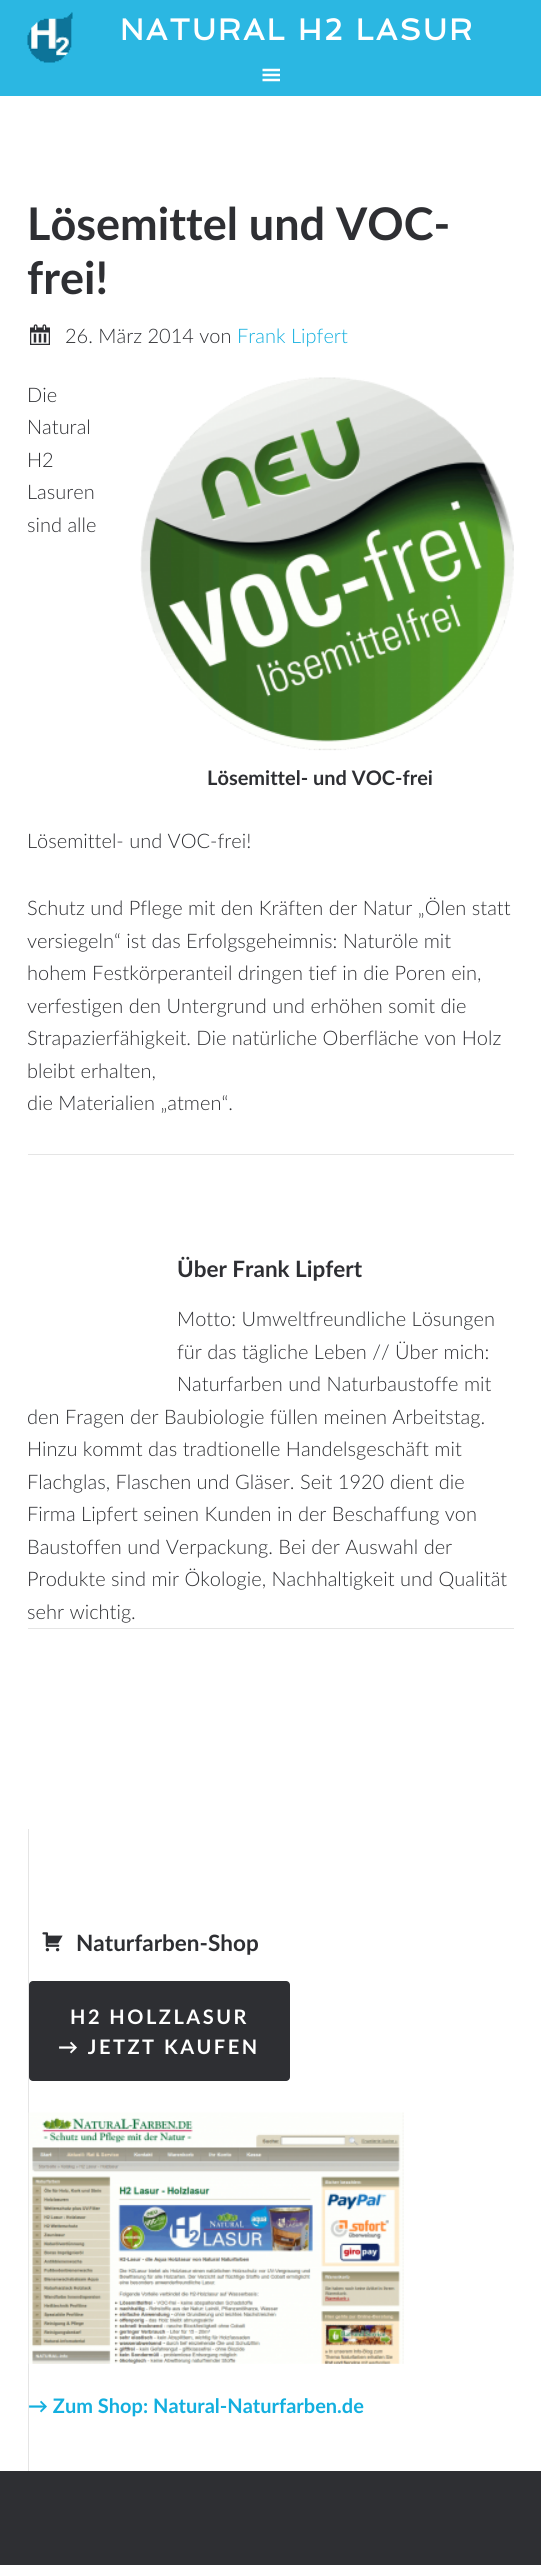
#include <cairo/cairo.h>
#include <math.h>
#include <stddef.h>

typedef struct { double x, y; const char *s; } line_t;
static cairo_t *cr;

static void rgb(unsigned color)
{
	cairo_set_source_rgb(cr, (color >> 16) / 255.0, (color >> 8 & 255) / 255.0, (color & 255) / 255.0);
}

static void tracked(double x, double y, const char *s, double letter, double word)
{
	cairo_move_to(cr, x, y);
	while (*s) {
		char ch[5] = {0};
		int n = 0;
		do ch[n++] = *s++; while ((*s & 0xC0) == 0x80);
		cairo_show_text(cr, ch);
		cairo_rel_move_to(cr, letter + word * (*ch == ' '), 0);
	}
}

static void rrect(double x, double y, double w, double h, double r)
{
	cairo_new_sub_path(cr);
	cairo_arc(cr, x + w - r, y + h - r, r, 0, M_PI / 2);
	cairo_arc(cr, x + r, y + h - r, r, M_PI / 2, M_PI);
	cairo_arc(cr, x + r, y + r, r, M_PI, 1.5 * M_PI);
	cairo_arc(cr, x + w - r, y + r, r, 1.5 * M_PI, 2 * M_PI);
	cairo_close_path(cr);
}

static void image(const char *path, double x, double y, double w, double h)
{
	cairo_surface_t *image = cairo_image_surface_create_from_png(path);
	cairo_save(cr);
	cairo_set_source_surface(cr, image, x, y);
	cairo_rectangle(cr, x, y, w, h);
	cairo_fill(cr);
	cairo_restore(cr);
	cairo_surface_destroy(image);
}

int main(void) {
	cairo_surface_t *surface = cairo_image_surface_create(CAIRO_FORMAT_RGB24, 541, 2565);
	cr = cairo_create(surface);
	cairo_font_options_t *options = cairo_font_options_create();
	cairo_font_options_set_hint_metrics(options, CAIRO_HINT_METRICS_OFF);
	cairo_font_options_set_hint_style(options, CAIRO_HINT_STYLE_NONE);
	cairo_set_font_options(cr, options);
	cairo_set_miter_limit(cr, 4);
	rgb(0x2bb7e2);
	cairo_paint(cr);
	image("img/1.png", 27, 12, 46, 51);
	image("img/2.png", 262, 68, 18, 14);
	rgb(0xffffff);
	cairo_rectangle(cr, 0, 96, 541, 2375);
	cairo_fill(cr);
	rgb(0xe5e5e5);
	cairo_rectangle(cr, 28, 1154, 486, 1);
	cairo_fill(cr);
	image("img/3.png", 30, 324, 20, 21);
	image("img/4.png", 140, 377, 374, 374);
	cairo_rectangle(cr, 28, 1628, 486, 1);
	cairo_fill(cr);
	cairo_rectangle(cr, 28, 1829, 1, 642);
	cairo_fill(cr);
	image("img/5.png", 42, 1932, 21, 20);
	rgb(0x2e2f33);
	rrect(29, 1981, 261, 100, 4);
	cairo_fill(cr);
	image("img/6.png", 28, 2112, 376, 252);
	cairo_rectangle(cr, 0, 2471, 541, 94);
	cairo_fill(cr);
	cairo_select_font_face(cr, "Spinnaker", CAIRO_FONT_SLANT_NORMAL, CAIRO_FONT_WEIGHT_BOLD);
	cairo_set_font_size(cr, 30);
	rgb(0xffffff);
	tracked(120, 40, "NATURAL H2 LASUR", 2.5, 0);
	cairo_select_font_face(cr, "Lato", CAIRO_FONT_SLANT_NORMAL, CAIRO_FONT_WEIGHT_BOLD);
	cairo_set_font_size(cr, 45);
	rgb(0x2e2f33);
	cairo_move_to(cr, 27, 240);
	cairo_show_text(cr, "Lösemittel und VOC-");
	cairo_move_to(cr, 27, 294);
	cairo_show_text(cr, "frei!");
	cairo_select_font_face(cr, "Lato Light", CAIRO_FONT_SLANT_NORMAL, CAIRO_FONT_WEIGHT_NORMAL);
	cairo_set_font_size(cr, 20);
	cairo_move_to(cr, 65, 343);
	cairo_show_text(cr, "26. März 2014 von");
	rgb(0x13afdf);
	cairo_move_to(cr, 237, 343);
	cairo_show_text(cr, "Frank Lipfert");
	rgb(0x2e2f33);
	{
		static const line_t items[] = {
			{27, 402, "Die"},
			{27, 434, "Natural"},
			{27, 467, "H2"},
			{27, 499, "Lasuren"},
			{27, 532, "sind alle"},
			{27, 848, "Lösemittel- und VOC-frei!"},
		};
		for (size_t i = 0; i < sizeof items / sizeof *items; i++) {
			cairo_move_to(cr, items[i].x, items[i].y);
			cairo_show_text(cr, items[i].s);
		}
	}
	cairo_select_font_face(cr, "Lato", CAIRO_FONT_SLANT_NORMAL, CAIRO_FONT_WEIGHT_BOLD);
	cairo_move_to(cr, 207, 785);
	cairo_show_text(cr, "Lösemittel- und VOC-frei");
	cairo_select_font_face(cr, "Lato Light", CAIRO_FONT_SLANT_NORMAL, CAIRO_FONT_WEIGHT_NORMAL);
	{
		static const line_t items[] = {
			{27, 915, "Schutz und Pflege mit den Kräften der Natur „Ölen statt"},
			{27, 948, "versiegeln“ ist das Erfolgsgeheimnis: Naturöle mit"},
			{27, 980, "hohem Festkörperanteil dringen tief in die Poren ein,"},
			{27, 1013, "verfestigen den Untergrund und erhöhen somit die"},
			{27, 1045, "Strapazierfähigkeit. Die natürliche Oberfläche von Holz"},
			{27, 1078, "bleibt erhalten,"},
			{27, 1110, "die Materialien „atmen“."},
		};
		for (size_t i = 0; i < sizeof items / sizeof *items; i++) {
			cairo_move_to(cr, items[i].x, items[i].y);
			cairo_show_text(cr, items[i].s);
		}
	}
	cairo_select_font_face(cr, "Lato", CAIRO_FONT_SLANT_NORMAL, CAIRO_FONT_WEIGHT_BOLD);
	cairo_set_font_size(cr, 22.5);
	cairo_move_to(cr, 177, 1277);
	cairo_show_text(cr, "Über Frank Lipfert");
	cairo_select_font_face(cr, "Lato Light", CAIRO_FONT_SLANT_NORMAL, CAIRO_FONT_WEIGHT_NORMAL);
	cairo_set_font_size(cr, 20);
	{
		static const line_t items[] = {
			{177, 1326, "Motto: Umweltfreundliche Lösungen"},
			{177, 1359, "für das tägliche Leben // Über mich:"},
			{177, 1391, "Naturfarben und Naturbaustoffe mit"},
			{27, 1424, "den Fragen der Baubiologie füllen meinen Arbeitstag."},
			{27, 1456, "Hinzu kommt das tradtionelle Handelsgeschäft mit"},
			{27, 1489, "Flachglas, Flaschen und Gläser. Seit 1920 dient die"},
			{27, 1521, "Firma Lipfert seinen Kunden in der Beschaffung von"},
			{27, 1554, "Baustoffen und Verpackung. Bei der Auswahl der"},
			{27, 1586, "Produkte sind mir Ökologie, Nachhaltigkeit und Qualität"},
			{27, 1619, "sehr wichtig."},
		};
		for (size_t i = 0; i < sizeof items / sizeof *items; i++) {
			cairo_move_to(cr, items[i].x, items[i].y);
			cairo_show_text(cr, items[i].s);
		}
	}
	cairo_select_font_face(cr, "Lato", CAIRO_FONT_SLANT_NORMAL, CAIRO_FONT_WEIGHT_BOLD);
	cairo_set_font_size(cr, 22.5);
	cairo_move_to(cr, 76, 1951);
	cairo_show_text(cr, "Naturfarben-Shop");
	cairo_set_font_size(cr, 20);
	rgb(0xffffff);
	tracked(70, 2024, "H2 HOLZLASUR", 2.5, 0);
	tracked(58, 2054, "→ JETZT KAUFEN", 2.5, 0);
	rgb(0x13afdf);
	cairo_move_to(cr, 28, 2413);
	cairo_show_text(cr, "→ Zum Shop: Natural-Naturfarben.de");
	cairo_surface_write_to_png(surface, "page.png");
	cairo_font_options_destroy(options);
	cairo_destroy(cr);
	cairo_surface_destroy(surface);
	return 0;
}
